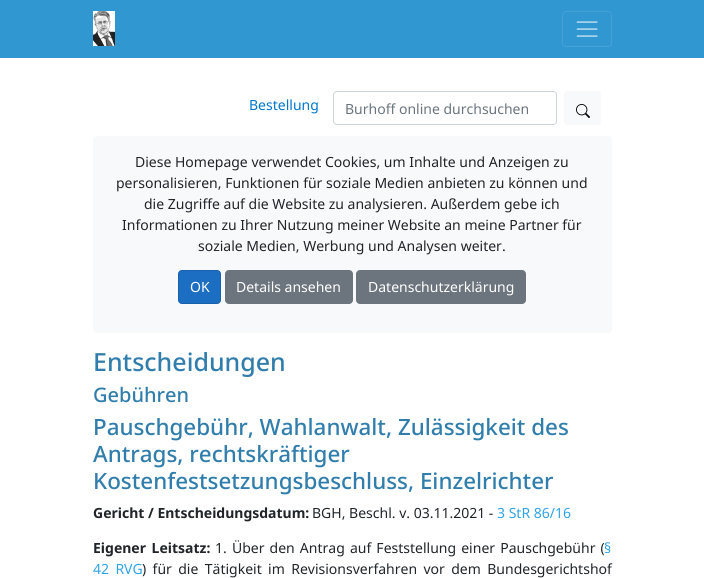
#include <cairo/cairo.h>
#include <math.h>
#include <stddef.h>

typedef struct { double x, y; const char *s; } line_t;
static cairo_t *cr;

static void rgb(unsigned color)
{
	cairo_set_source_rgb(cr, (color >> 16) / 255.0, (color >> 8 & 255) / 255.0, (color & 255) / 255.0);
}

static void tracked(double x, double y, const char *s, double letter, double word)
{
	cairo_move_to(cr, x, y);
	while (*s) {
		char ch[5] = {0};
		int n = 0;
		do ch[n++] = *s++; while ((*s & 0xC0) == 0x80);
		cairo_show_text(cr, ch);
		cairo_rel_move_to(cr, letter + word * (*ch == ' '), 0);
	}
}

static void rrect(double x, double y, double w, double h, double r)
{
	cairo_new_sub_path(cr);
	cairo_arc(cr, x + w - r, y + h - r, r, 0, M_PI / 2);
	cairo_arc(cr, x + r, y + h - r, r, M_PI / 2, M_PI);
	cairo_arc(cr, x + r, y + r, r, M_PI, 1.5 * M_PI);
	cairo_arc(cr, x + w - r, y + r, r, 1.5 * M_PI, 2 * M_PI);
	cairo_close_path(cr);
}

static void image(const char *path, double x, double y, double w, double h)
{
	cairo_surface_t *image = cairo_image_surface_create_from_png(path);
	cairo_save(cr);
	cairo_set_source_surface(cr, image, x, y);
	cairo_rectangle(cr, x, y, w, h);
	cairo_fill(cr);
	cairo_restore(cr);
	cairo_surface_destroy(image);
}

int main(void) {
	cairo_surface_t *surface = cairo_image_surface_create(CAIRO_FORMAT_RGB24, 704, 578);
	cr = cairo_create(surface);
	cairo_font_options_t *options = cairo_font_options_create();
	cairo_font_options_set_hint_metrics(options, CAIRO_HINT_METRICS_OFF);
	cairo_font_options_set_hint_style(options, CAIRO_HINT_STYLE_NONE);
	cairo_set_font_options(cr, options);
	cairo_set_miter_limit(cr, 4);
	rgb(0xffffff);
	cairo_paint(cr);
	rgb(0x3097d1);
	cairo_rectangle(cr, 0, 0, 704, 58);
	cairo_fill(cr);
	image("img/1.png", 93, 11, 22, 35);
	rrect(562.5, 11.5, 49, 35, 3.5);
	rgb(0x45a1d6);
	cairo_set_line_width(cr, 1);
	cairo_stroke(cr);
	image("img/2.png", 576, 21, 22, 16);
	rrect(333.5, 91.5, 223, 33, 3.5);
	rgb(0xced4da);
	cairo_stroke(cr);
	rgb(0xf8f9fa);
	rrect(564, 91, 37, 34, 4);
	cairo_fill(cr);
	image("img/3.png", 576, 104, 14, 14);
	rrect(93, 136, 519, 197, 4);
	cairo_fill(cr);
	rgb(0x1b6ec2);
	rrect(178.5, 270.5, 42, 33, 3.5);
	cairo_fill_preserve(cr);
	rgb(0x1861ac);
	cairo_stroke(cr);
	rgb(0x6c757d);
	rrect(225.5, 270.5, 127, 33, 3.5);
	cairo_fill_preserve(cr);
	cairo_stroke(cr);
	rrect(356.5, 270.5, 169, 33, 3.5);
	cairo_fill_preserve(cr);
	cairo_stroke(cr);
	cairo_select_font_face(cr, "Noto Sans", CAIRO_FONT_SLANT_NORMAL, CAIRO_FONT_WEIGHT_NORMAL);
	cairo_set_font_size(cr, 14);
	rgb(0x0077cc);
	cairo_move_to(cr, 249, 110);
	cairo_show_text(cr, "Bestellung");
	rgb(0x6c757d);
	cairo_move_to(cr, 345, 114);
	cairo_show_text(cr, "Burhoff online durchsuchen");
	rgb(0x212529);
	{
		static const line_t items[] = {
			{135, 167, "Diese Homepage verwendet Cookies, um Inhalte und Anzeigen zu"},
			{116, 188, "personalisieren, Funktionen für soziale Medien anbieten zu können und"},
			{144, 209, "die Zugriffe auf die Website zu analysieren. Außerdem gebe ich"},
			{122, 230, "Informationen zu Ihrer Nutzung meiner Website an meine Partner für"},
			{198, 251, "soziale Medien, Werbung und Analysen weiter."},
		};
		for (size_t i = 0; i < sizeof items / sizeof *items; i++) {
			cairo_move_to(cr, items[i].x, items[i].y);
			cairo_show_text(cr, items[i].s);
		}
	}
	rgb(0xffffff);
	{
		static const line_t items[] = {
			{190, 292, "OK"},
			{236, 292, "Details ansehen"},
			{368, 292, "Datenschutzerklärung"},
		};
		for (size_t i = 0; i < sizeof items / sizeof *items; i++) {
			cairo_move_to(cr, items[i].x, items[i].y);
			cairo_show_text(cr, items[i].s);
		}
	}
	cairo_select_font_face(cr, "Noto Sans Medium", CAIRO_FONT_SLANT_NORMAL, CAIRO_FONT_WEIGHT_NORMAL);
	cairo_set_font_size(cr, 25);
	rgb(0x317eac);
	cairo_move_to(cr, 93, 371);
	cairo_show_text(cr, "Entscheidungen");
	cairo_set_font_size(cr, 20);
	cairo_move_to(cr, 93, 402);
	cairo_show_text(cr, "Gebühren");
	cairo_set_font_size(cr, 22.4);
	{
		static const line_t items[] = {
			{93, 435, "Pauschgebühr, Wahlanwalt, Zulässigkeit des"},
			{93, 462, "Antrags, rechtskräftiger"},
			{93, 489, "Kostenfestsetzungsbeschluss, Einzelrichter"},
		};
		for (size_t i = 0; i < sizeof items / sizeof *items; i++) {
			cairo_move_to(cr, items[i].x, items[i].y);
			cairo_show_text(cr, items[i].s);
		}
	}
	cairo_select_font_face(cr, "Noto Sans", CAIRO_FONT_SLANT_NORMAL, CAIRO_FONT_WEIGHT_BOLD);
	cairo_set_font_size(cr, 14);
	rgb(0x212529);
	cairo_move_to(cr, 93, 518);
	cairo_show_text(cr, "Gericht / Entscheidungsdatum:");
	cairo_select_font_face(cr, "Noto Sans", CAIRO_FONT_SLANT_NORMAL, CAIRO_FONT_WEIGHT_NORMAL);
	cairo_move_to(cr, 312, 518);
	cairo_show_text(cr, "BGH, Beschl. v. 03.11.2021 -");
	rgb(0x2fa4e7);
	cairo_move_to(cr, 497, 518);
	cairo_show_text(cr, "3 StR 86/16");
	cairo_select_font_face(cr, "Noto Sans", CAIRO_FONT_SLANT_NORMAL, CAIRO_FONT_WEIGHT_BOLD);
	rgb(0x212529);
	tracked(93, 553, "Eigener Leitsatz:", 0, 2);
	cairo_select_font_face(cr, "Noto Sans", CAIRO_FONT_SLANT_NORMAL, CAIRO_FONT_WEIGHT_NORMAL);
	tracked(215, 553, "1. Über den Antrag auf Feststellung einer Pauschgebühr (", 0, 1.5);
	rgb(0x2fa4e7);
	cairo_move_to(cr, 604, 553);
	cairo_show_text(cr, "§");
	tracked(93, 574, "42 RVG", 0, 2.75);
	rgb(0x212529);
	tracked(142, 574, ") für die Tätigkeit im Revisionsverfahren vor dem Bundesgerichtshof", 0, 2.75);
	cairo_surface_write_to_png(surface, "page.png");
	cairo_font_options_destroy(options);
	cairo_destroy(cr);
	cairo_surface_destroy(surface);
	return 0;
}
